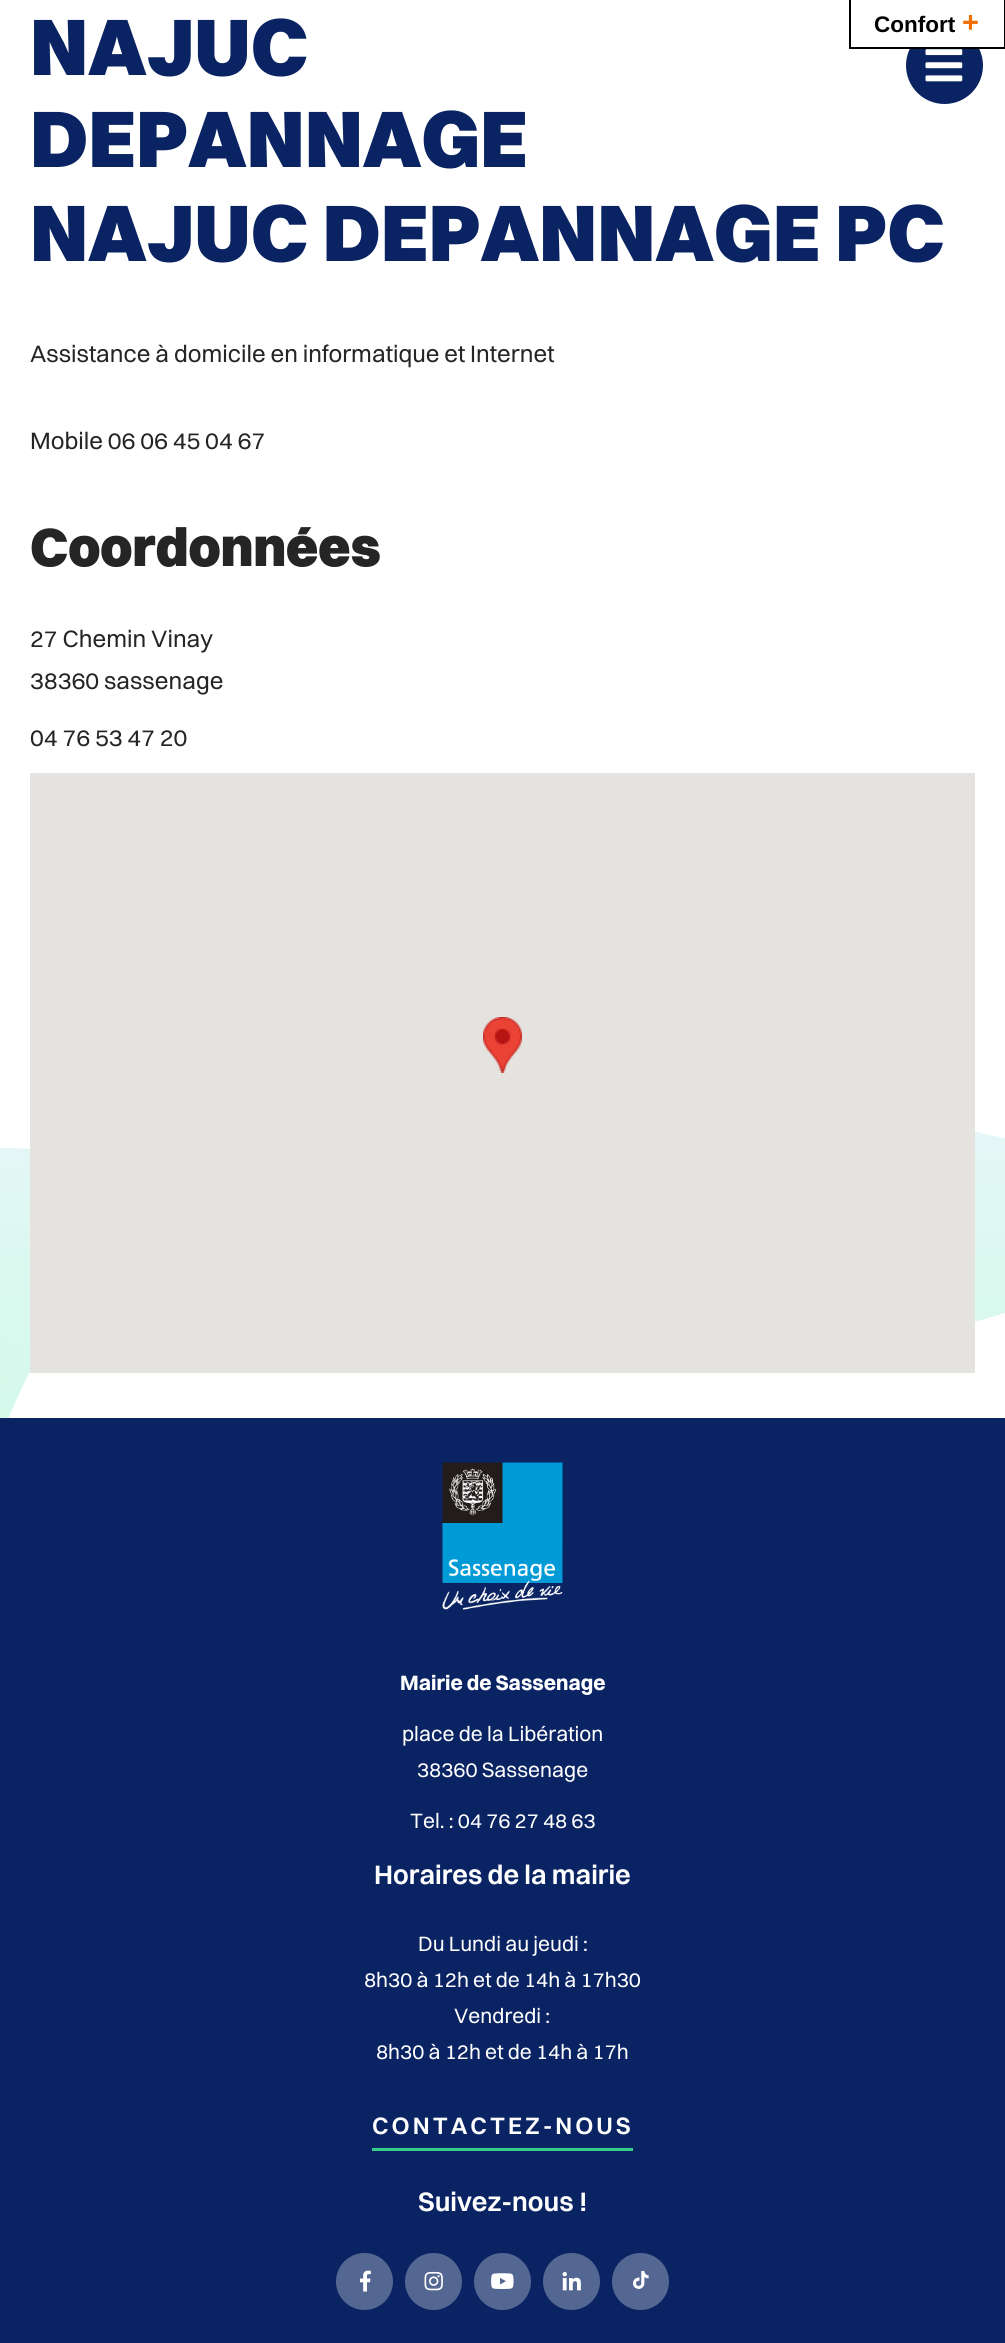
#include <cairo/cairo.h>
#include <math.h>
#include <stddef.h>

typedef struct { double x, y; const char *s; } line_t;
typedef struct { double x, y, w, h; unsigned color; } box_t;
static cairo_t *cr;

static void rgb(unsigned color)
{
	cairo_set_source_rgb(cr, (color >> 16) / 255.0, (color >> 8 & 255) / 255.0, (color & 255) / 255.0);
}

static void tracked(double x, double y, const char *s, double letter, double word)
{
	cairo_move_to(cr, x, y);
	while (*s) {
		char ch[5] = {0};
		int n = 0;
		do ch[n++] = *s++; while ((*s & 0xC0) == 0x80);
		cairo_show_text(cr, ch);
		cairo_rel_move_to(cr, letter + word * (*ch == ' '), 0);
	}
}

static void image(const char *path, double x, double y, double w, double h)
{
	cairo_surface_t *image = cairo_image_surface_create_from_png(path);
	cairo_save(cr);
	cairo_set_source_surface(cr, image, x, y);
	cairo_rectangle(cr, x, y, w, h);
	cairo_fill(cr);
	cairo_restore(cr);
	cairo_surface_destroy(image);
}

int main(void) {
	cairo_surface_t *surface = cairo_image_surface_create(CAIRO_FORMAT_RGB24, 1005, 2343);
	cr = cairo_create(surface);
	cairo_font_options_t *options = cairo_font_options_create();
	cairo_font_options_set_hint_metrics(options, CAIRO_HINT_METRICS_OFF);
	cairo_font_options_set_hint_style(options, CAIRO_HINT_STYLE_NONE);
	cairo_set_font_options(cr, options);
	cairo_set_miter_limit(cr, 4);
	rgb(0xffffff);
	cairo_paint(cr);
	rgb(0x0a2463);
	cairo_arc(cr, 944.5, 65.5, 37, 0, 2 * M_PI);
	cairo_fill_preserve(cr);
	cairo_set_line_width(cr, 3);
	cairo_stroke(cr);
	{
		static const box_t items[] = {
			{910, 27, 69, 20, 0xffffff},
			{1004, 0, 1, 48, 0x000000},
			{849, 47, 156, 2, 0x000000},
			{849, 0, 2, 48, 0x000000},
		};
		for (size_t i = 0; i < sizeof items / sizeof *items; i++) {
			rgb(items[i].color);
			cairo_rectangle(cr, items[i].x, items[i].y, items[i].w, items[i].h);
			cairo_fill(cr);
		}
	}
	image("img/1.png", 925, 49, 38, 33);
	image("img/3.png", 0, 1131, 1005, 287);
	rgb(0xe5e3df);
	cairo_rectangle(cr, 30, 773, 945, 600);
	cairo_fill(cr);
	image("img/2.png", 483, 1017, 39, 56);
	rgb(0x0a2463);
	cairo_rectangle(cr, 0, 1418, 1005, 925);
	cairo_fill(cr);
	image("img/4.png", 442, 1462, 121, 148);
	rgb(0x35cd8b);
	cairo_rectangle(cr, 372, 2148, 261, 3);
	cairo_fill(cr);
	rgb(0x546692);
	cairo_arc(cr, 364.5, 2281.5, 27, 0, 2 * M_PI);
	cairo_fill_preserve(cr);
	cairo_stroke(cr);
	image("img/5.png", 360, 2270, 11, 22);
	cairo_arc(cr, 433.5, 2281.5, 27, 0, 2 * M_PI);
	cairo_fill_preserve(cr);
	cairo_stroke(cr);
	image("img/6.png", 424, 2271, 19, 20);
	cairo_arc(cr, 502.5, 2281.5, 27, 0, 2 * M_PI);
	cairo_fill_preserve(cr);
	cairo_stroke(cr);
	image("img/7.png", 491, 2273, 23, 16);
	cairo_arc(cr, 571.5, 2281.5, 27, 0, 2 * M_PI);
	cairo_fill_preserve(cr);
	cairo_stroke(cr);
	image("img/8.png", 562, 2272, 19, 19);
	cairo_arc(cr, 640.5, 2281.5, 27, 0, 2 * M_PI);
	cairo_fill_preserve(cr);
	cairo_stroke(cr);
	image("img/9.png", 633, 2271, 16, 18);
	cairo_select_font_face(cr, "Liberation Sans", CAIRO_FONT_SLANT_NORMAL, CAIRO_FONT_WEIGHT_BOLD);
	cairo_set_font_size(cr, 22.5);
	rgb(0x000000);
	cairo_move_to(cr, 874, 32);
	cairo_show_text(cr, "Confort");
	cairo_set_font_size(cr, 29);
	rgb(0xf16e00);
	cairo_move_to(cr, 962, 32);
	cairo_show_text(cr, "+");
	cairo_select_font_face(cr, "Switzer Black", CAIRO_FONT_SLANT_NORMAL, CAIRO_FONT_WEIGHT_NORMAL);
	cairo_set_font_size(cr, 81);
	rgb(0x0a2463);
	{
		static const line_t items[] = {
			{30, 75, "NAJUC"},
			{30, 167, "DEPANNAGE"},
			{30, 261, "NAJUC DEPANNAGE PC"},
		};
		for (size_t i = 0; i < sizeof items / sizeof *items; i++) {
			cairo_move_to(cr, items[i].x, items[i].y);
			cairo_show_text(cr, items[i].s);
		}
	}
	cairo_select_font_face(cr, "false", CAIRO_FONT_SLANT_NORMAL, CAIRO_FONT_WEIGHT_NORMAL);
	cairo_set_font_size(cr, 24);
	rgb(0x252525);
	cairo_move_to(cr, 30, 362);
	cairo_show_text(cr, "Assistance à domicile en informatique et Internet");
	cairo_move_to(cr, 30, 449);
	cairo_show_text(cr, "Mobile 06 06 45 04 67");
	cairo_select_font_face(cr, "Switzer Black", CAIRO_FONT_SLANT_NORMAL, CAIRO_FONT_WEIGHT_NORMAL);
	cairo_set_font_size(cr, 54);
	cairo_move_to(cr, 30, 566);
	cairo_show_text(cr, "Coordonnées");
	cairo_select_font_face(cr, "false", CAIRO_FONT_SLANT_NORMAL, CAIRO_FONT_WEIGHT_NORMAL);
	cairo_set_font_size(cr, 24);
	{
		static const line_t items[] = {
			{30, 647, "27 Chemin Vinay"},
			{30, 689, "38360 sassenage"},
			{30, 746, "04 76 53 47 20"},
		};
		for (size_t i = 0; i < sizeof items / sizeof *items; i++) {
			cairo_move_to(cr, items[i].x, items[i].y);
			cairo_show_text(cr, items[i].s);
		}
	}
	cairo_select_font_face(cr, "false", CAIRO_FONT_SLANT_NORMAL, CAIRO_FONT_WEIGHT_BOLD);
	cairo_set_font_size(cr, 21);
	rgb(0xffffff);
	cairo_move_to(cr, 400, 1690);
	cairo_show_text(cr, "Mairie de Sassenage");
	cairo_select_font_face(cr, "false", CAIRO_FONT_SLANT_NORMAL, CAIRO_FONT_WEIGHT_NORMAL);
	{
		static const line_t items[] = {
			{402, 1741, "place de la Libération"},
			{417, 1777, "38360 Sassenage"},
			{410, 1828, "Tel. : 04 76 27 48 63"},
		};
		for (size_t i = 0; i < sizeof items / sizeof *items; i++) {
			cairo_move_to(cr, items[i].x, items[i].y);
			cairo_show_text(cr, items[i].s);
		}
	}
	cairo_select_font_face(cr, "Switzer SemiBold", CAIRO_FONT_SLANT_NORMAL, CAIRO_FONT_WEIGHT_NORMAL);
	cairo_set_font_size(cr, 27);
	cairo_move_to(cr, 374, 1884);
	cairo_show_text(cr, "Horaires de la mairie");
	cairo_select_font_face(cr, "false", CAIRO_FONT_SLANT_NORMAL, CAIRO_FONT_WEIGHT_NORMAL);
	cairo_set_font_size(cr, 21);
	{
		static const line_t items[] = {
			{418, 1951, "Du Lundi au jeudi :"},
			{364, 1987, "8h30 à 12h et de 14h à 17h30"},
			{454, 2023, "Vendredi :"},
			{376, 2059, "8h30 à 12h et de 14h à 17h"},
		};
		for (size_t i = 0; i < sizeof items / sizeof *items; i++) {
			cairo_move_to(cr, items[i].x, items[i].y);
			cairo_show_text(cr, items[i].s);
		}
	}
	cairo_select_font_face(cr, "Switzer SemiBold", CAIRO_FONT_SLANT_NORMAL, CAIRO_FONT_WEIGHT_NORMAL);
	cairo_set_font_size(cr, 24);
	tracked(372, 2134, "CONTACTEZ-NOUS", 3, 0);
	cairo_set_font_size(cr, 27);
	cairo_move_to(cr, 418, 2211);
	cairo_show_text(cr, "Suivez-nous !");
	cairo_surface_write_to_png(surface, "page.png");
	cairo_font_options_destroy(options);
	cairo_destroy(cr);
	cairo_surface_destroy(surface);
	return 0;
}
